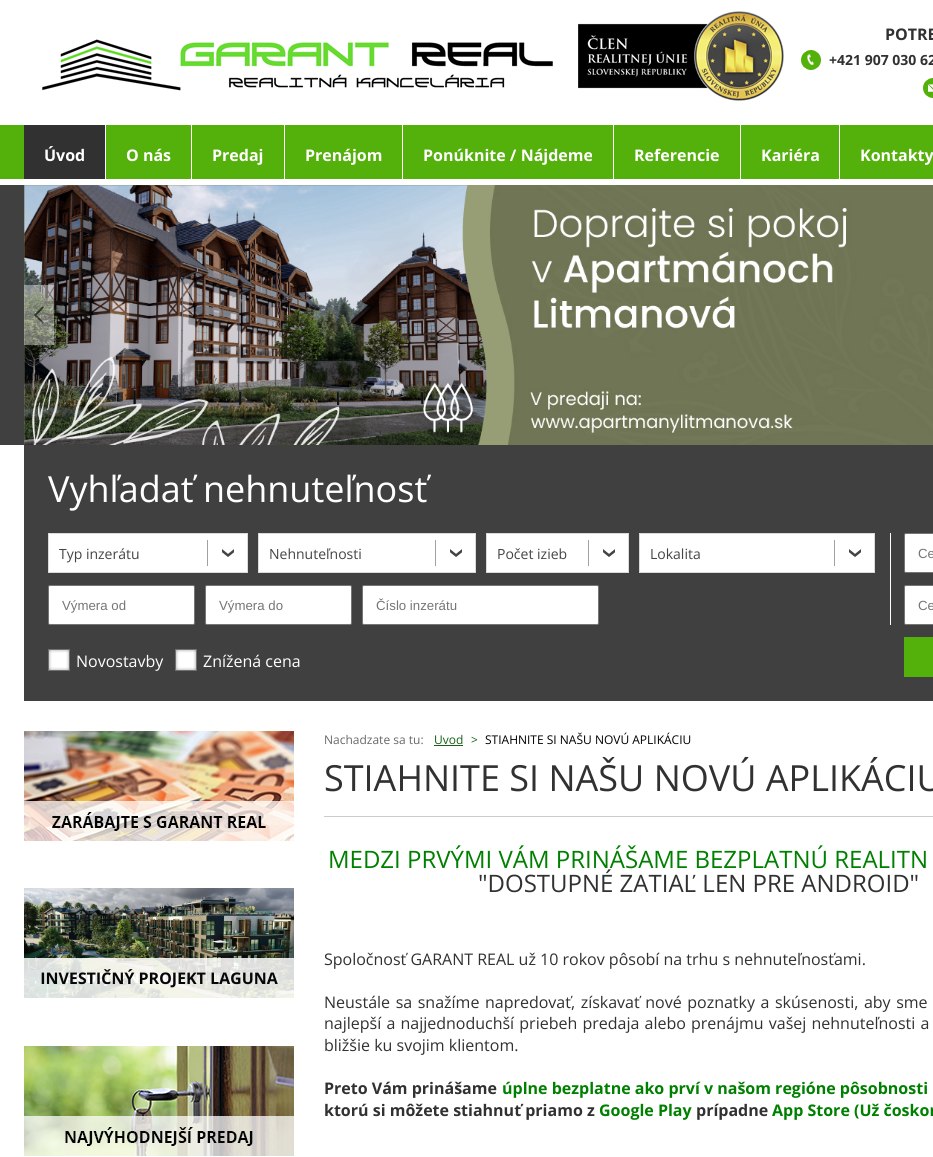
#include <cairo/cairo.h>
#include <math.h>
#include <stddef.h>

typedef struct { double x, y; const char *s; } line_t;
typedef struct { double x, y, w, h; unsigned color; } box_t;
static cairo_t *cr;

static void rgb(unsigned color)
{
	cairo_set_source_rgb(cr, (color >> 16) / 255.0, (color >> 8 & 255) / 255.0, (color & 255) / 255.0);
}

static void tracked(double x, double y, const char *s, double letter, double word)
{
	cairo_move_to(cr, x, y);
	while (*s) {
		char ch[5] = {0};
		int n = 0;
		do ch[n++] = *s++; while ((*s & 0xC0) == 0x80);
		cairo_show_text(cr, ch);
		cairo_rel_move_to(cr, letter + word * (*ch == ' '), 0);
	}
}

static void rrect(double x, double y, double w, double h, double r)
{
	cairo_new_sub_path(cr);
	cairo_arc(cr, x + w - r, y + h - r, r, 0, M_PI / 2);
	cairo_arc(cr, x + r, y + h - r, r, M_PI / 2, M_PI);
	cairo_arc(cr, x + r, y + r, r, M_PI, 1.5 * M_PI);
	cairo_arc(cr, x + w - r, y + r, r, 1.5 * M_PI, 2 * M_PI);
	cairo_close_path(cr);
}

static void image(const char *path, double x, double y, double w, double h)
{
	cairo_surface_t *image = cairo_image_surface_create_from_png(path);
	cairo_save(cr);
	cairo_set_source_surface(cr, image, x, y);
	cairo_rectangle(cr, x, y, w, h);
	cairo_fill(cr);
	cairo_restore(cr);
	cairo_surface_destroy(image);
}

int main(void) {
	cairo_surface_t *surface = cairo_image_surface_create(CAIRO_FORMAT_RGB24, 933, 1157);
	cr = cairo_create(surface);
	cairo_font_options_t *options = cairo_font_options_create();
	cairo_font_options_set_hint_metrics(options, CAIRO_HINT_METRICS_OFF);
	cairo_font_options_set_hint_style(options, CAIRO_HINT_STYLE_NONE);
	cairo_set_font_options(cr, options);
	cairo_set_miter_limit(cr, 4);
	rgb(0xffffff);
	cairo_paint(cr);
	image("img/1.png", 42, 11, 742, 90);
	image("img/2.png", 801, 50, 20, 20);
	image("img/3.png", 923, 78, 10, 20);
	{
		static const box_t items[] = {
			{0, 125, 933, 54, 0x54b00a},
			{105, 125, 1, 60, 0xffffff},
			{24, 125, 81, 54, 0x313131},
			{191, 125, 1, 60, 0xffffff},
			{284, 125, 1, 60, 0xffffff},
			{402, 125, 1, 60, 0xffffff},
			{613, 125, 1, 60, 0xffffff},
			{740, 125, 1, 60, 0xffffff},
			{839, 125, 1, 60, 0xffffff},
			{0, 185, 24, 260, 0x404040},
		};
		for (size_t i = 0; i < sizeof items / sizeof *items; i++) {
			rgb(items[i].color);
			cairo_rectangle(cr, items[i].x, items[i].y, items[i].w, items[i].h);
			cairo_fill(cr);
		}
	}
	image("img/4.png", 24, 185, 909, 260);
	image("img/5.png", 24, 285, 30, 60);
	cairo_rectangle(cr, 24, 445, 909, 256);
	cairo_fill(cr);
	rgb(0xffffff);
	cairo_rectangle(cr, 49, 534, 198, 38);
	cairo_fill(cr);
	image("img/6.png", 207, 540, 27, 26);
	cairo_rectangle(cr, 48.5, 533.5, 199, 39);
	rgb(0xdadada);
	cairo_set_line_width(cr, 1);
	cairo_stroke(cr);
	rgb(0xffffff);
	cairo_rectangle(cr, 259, 534, 216, 38);
	cairo_fill(cr);
	image("img/6.png", 435, 540, 27, 26);
	cairo_rectangle(cr, 258.5, 533.5, 217, 39);
	rgb(0xdadada);
	cairo_stroke(cr);
	rgb(0xffffff);
	cairo_rectangle(cr, 487, 534, 141, 38);
	cairo_fill(cr);
	image("img/6.png", 588, 540, 27, 26);
	cairo_rectangle(cr, 486.5, 533.5, 142, 39);
	rgb(0xdadada);
	cairo_stroke(cr);
	rgb(0xffffff);
	cairo_rectangle(cr, 640, 534, 234, 38);
	cairo_fill(cr);
	image("img/6.png", 834, 540, 27, 26);
	cairo_rectangle(cr, 639.5, 533.5, 235, 39);
	rgb(0xdadada);
	cairo_stroke(cr);
	rgb(0xffffff);
	rrect(48.5, 585.5, 146, 39, 1.5);
	cairo_fill_preserve(cr);
	rgb(0x767676);
	cairo_stroke(cr);
	rgb(0xffffff);
	rrect(205.5, 585.5, 146, 39, 1.5);
	cairo_fill_preserve(cr);
	rgb(0x767676);
	cairo_stroke(cr);
	rgb(0xffffff);
	rrect(362.5, 585.5, 236, 39, 1.5);
	cairo_fill_preserve(cr);
	rgb(0x767676);
	cairo_stroke(cr);
	rgb(0xffffff);
	cairo_rectangle(cr, 890, 533, 1, 92);
	cairo_fill(cr);
	rrect(904.5, 533.5, 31, 39, 1.5);
	cairo_fill_preserve(cr);
	rgb(0x767676);
	cairo_stroke(cr);
	rgb(0xffffff);
	rrect(904.5, 585.5, 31, 39, 1.5);
	cairo_fill_preserve(cr);
	rgb(0x767676);
	cairo_stroke(cr);
	image("img/7.png", 48, 649, 22, 22);
	image("img/7.png", 175, 649, 22, 22);
	rgb(0x54b00a);
	cairo_rectangle(cr, 904, 637, 29, 40);
	cairo_fill(cr);
	image("img/8.png", 24, 731, 270, 110);
	image("img/9.png", 24, 888, 270, 110);
	image("img/10.png", 24, 1046, 270, 110);
	rgb(0x166115);
	cairo_rectangle(cr, 434, 745, 29, 1);
	cairo_fill(cr);
	rgb(0xcccccc);
	cairo_rectangle(cr, 324, 816, 609, 1);
	cairo_fill(cr);
	cairo_select_font_face(cr, "Open Sans", CAIRO_FONT_SLANT_NORMAL, CAIRO_FONT_WEIGHT_BOLD);
	cairo_set_font_size(cr, 16);
	rgb(0x313131);
	cairo_move_to(cr, 885, 40);
	cairo_show_text(cr, "POTRE");
	cairo_set_font_size(cr, 14);
	cairo_move_to(cr, 829, 65);
	cairo_show_text(cr, "+421 907 030 62");
	cairo_set_font_size(cr, 16);
	rgb(0xffffff);
	{
		static const line_t items[] = {
			{44, 161, "Úvod"},
			{126, 161, "O nás"},
			{212, 161, "Predaj"},
			{305, 161, "Prenájom"},
			{423, 161, "Ponúknite / Nájdeme"},
			{634, 161, "Referencie"},
			{761, 161, "Kariéra"},
			{860, 161, "Kontakty"},
		};
		for (size_t i = 0; i < sizeof items / sizeof *items; i++) {
			cairo_move_to(cr, items[i].x, items[i].y);
			cairo_show_text(cr, items[i].s);
		}
	}
	cairo_select_font_face(cr, "Open Sans", CAIRO_FONT_SLANT_NORMAL, CAIRO_FONT_WEIGHT_NORMAL);
	cairo_set_font_size(cr, 36);
	cairo_move_to(cr, 48, 502);
	cairo_show_text(cr, "Vyhľadať nehnuteľnosť");
	cairo_set_font_size(cr, 14);
	rgb(0x444444);
	{
		static const line_t items[] = {
			{59, 559, "Typ inzerátu"},
			{269, 559, "Nehnuteľnosti"},
			{497, 559, "Počet izieb"},
			{650, 559, "Lokalita"},
		};
		for (size_t i = 0; i < sizeof items / sizeof *items; i++) {
			cairo_move_to(cr, items[i].x, items[i].y);
			cairo_show_text(cr, items[i].s);
		}
	}
	cairo_select_font_face(cr, "Liberation Sans", CAIRO_FONT_SLANT_NORMAL, CAIRO_FONT_WEIGHT_NORMAL);
	cairo_set_font_size(cr, 13.25);
	rgb(0x757575);
	{
		static const line_t items[] = {
			{62, 610, "Výmera od"},
			{219, 610, "Výmera do"},
			{376, 610, "Číslo inzerátu"},
			{918, 558, "Ce"},
			{918, 610, "Ce"},
		};
		for (size_t i = 0; i < sizeof items / sizeof *items; i++) {
			cairo_move_to(cr, items[i].x, items[i].y);
			cairo_show_text(cr, items[i].s);
		}
	}
	cairo_select_font_face(cr, "Open Sans", CAIRO_FONT_SLANT_NORMAL, CAIRO_FONT_WEIGHT_NORMAL);
	cairo_set_font_size(cr, 16);
	rgb(0xffffff);
	cairo_move_to(cr, 76, 667);
	cairo_show_text(cr, "Novostavby");
	cairo_move_to(cr, 203, 667);
	cairo_show_text(cr, "Znížená cena");
	cairo_set_font_size(cr, 12);
	rgb(0x686868);
	cairo_move_to(cr, 324, 744);
	cairo_show_text(cr, "Nachadzate sa tu:");
	rgb(0x166115);
	cairo_move_to(cr, 434, 744);
	cairo_show_text(cr, "Uvod");
	cairo_move_to(cr, 471, 744);
	cairo_show_text(cr, ">");
	rgb(0x000000);
	cairo_move_to(cr, 485, 744);
	cairo_show_text(cr, "STIAHNITE SI NAŠU NOVÚ APLIKÁCIU");
	cairo_set_font_size(cr, 36);
	rgb(0x313131);
	cairo_move_to(cr, 324, 791);
	cairo_show_text(cr, "STIAHNITE SI NAŠU NOVÚ APLIKÁCIU");
	cairo_set_font_size(cr, 24);
	rgb(0x008000);
	cairo_move_to(cr, 328, 868);
	cairo_show_text(cr, "MEDZI PRVÝMI VÁM PRINÁŠAME BEZPLATNÚ REALITN");
	rgb(0x313131);
	cairo_move_to(cr, 478, 892);
	cairo_show_text(cr, "\"DOSTUPNÉ ZATIAĽ LEN PRE ANDROID\"");
	cairo_set_font_size(cr, 16);
	cairo_move_to(cr, 324, 965);
	cairo_show_text(cr, "Spoločnosť GARANT REAL už 10 rokov pôsobí na trhu s nehnuteľnosťami.");
	tracked(324, 1008, "Neustále sa snažíme napredovať, získavať nové poznatky a skúsenosti, aby sme", 0, 1.4);
	tracked(324, 1029, "najlepší a najjednoduchší priebeh predaja alebo prenájmu vašej nehnuteľnosti a", 0, 1);
	cairo_move_to(cr, 324, 1051);
	cairo_show_text(cr, "bližšie ku svojim klientom.");
	cairo_select_font_face(cr, "Open Sans", CAIRO_FONT_SLANT_NORMAL, CAIRO_FONT_WEIGHT_BOLD);
	cairo_move_to(cr, 324, 1094);
	cairo_show_text(cr, "Preto Vám prinášame");
	rgb(0x008000);
	cairo_move_to(cr, 502, 1094);
	cairo_show_text(cr, "úplne bezplatne ako prví v našom regióne pôsobnosti");
	rgb(0x313131);
	cairo_move_to(cr, 324, 1116);
	cairo_show_text(cr, "ktorú si môžete stiahnuť priamo z");
	rgb(0x008000);
	cairo_move_to(cr, 599, 1116);
	cairo_show_text(cr, "Google Play");
	rgb(0x313131);
	cairo_move_to(cr, 696, 1116);
	cairo_show_text(cr, "prípadne");
	rgb(0x008000);
	cairo_move_to(cr, 772, 1116);
	cairo_show_text(cr, "App Store (Už čoskor");
	cairo_surface_write_to_png(surface, "page.png");
	cairo_font_options_destroy(options);
	cairo_destroy(cr);
	cairo_surface_destroy(surface);
	return 0;
}
